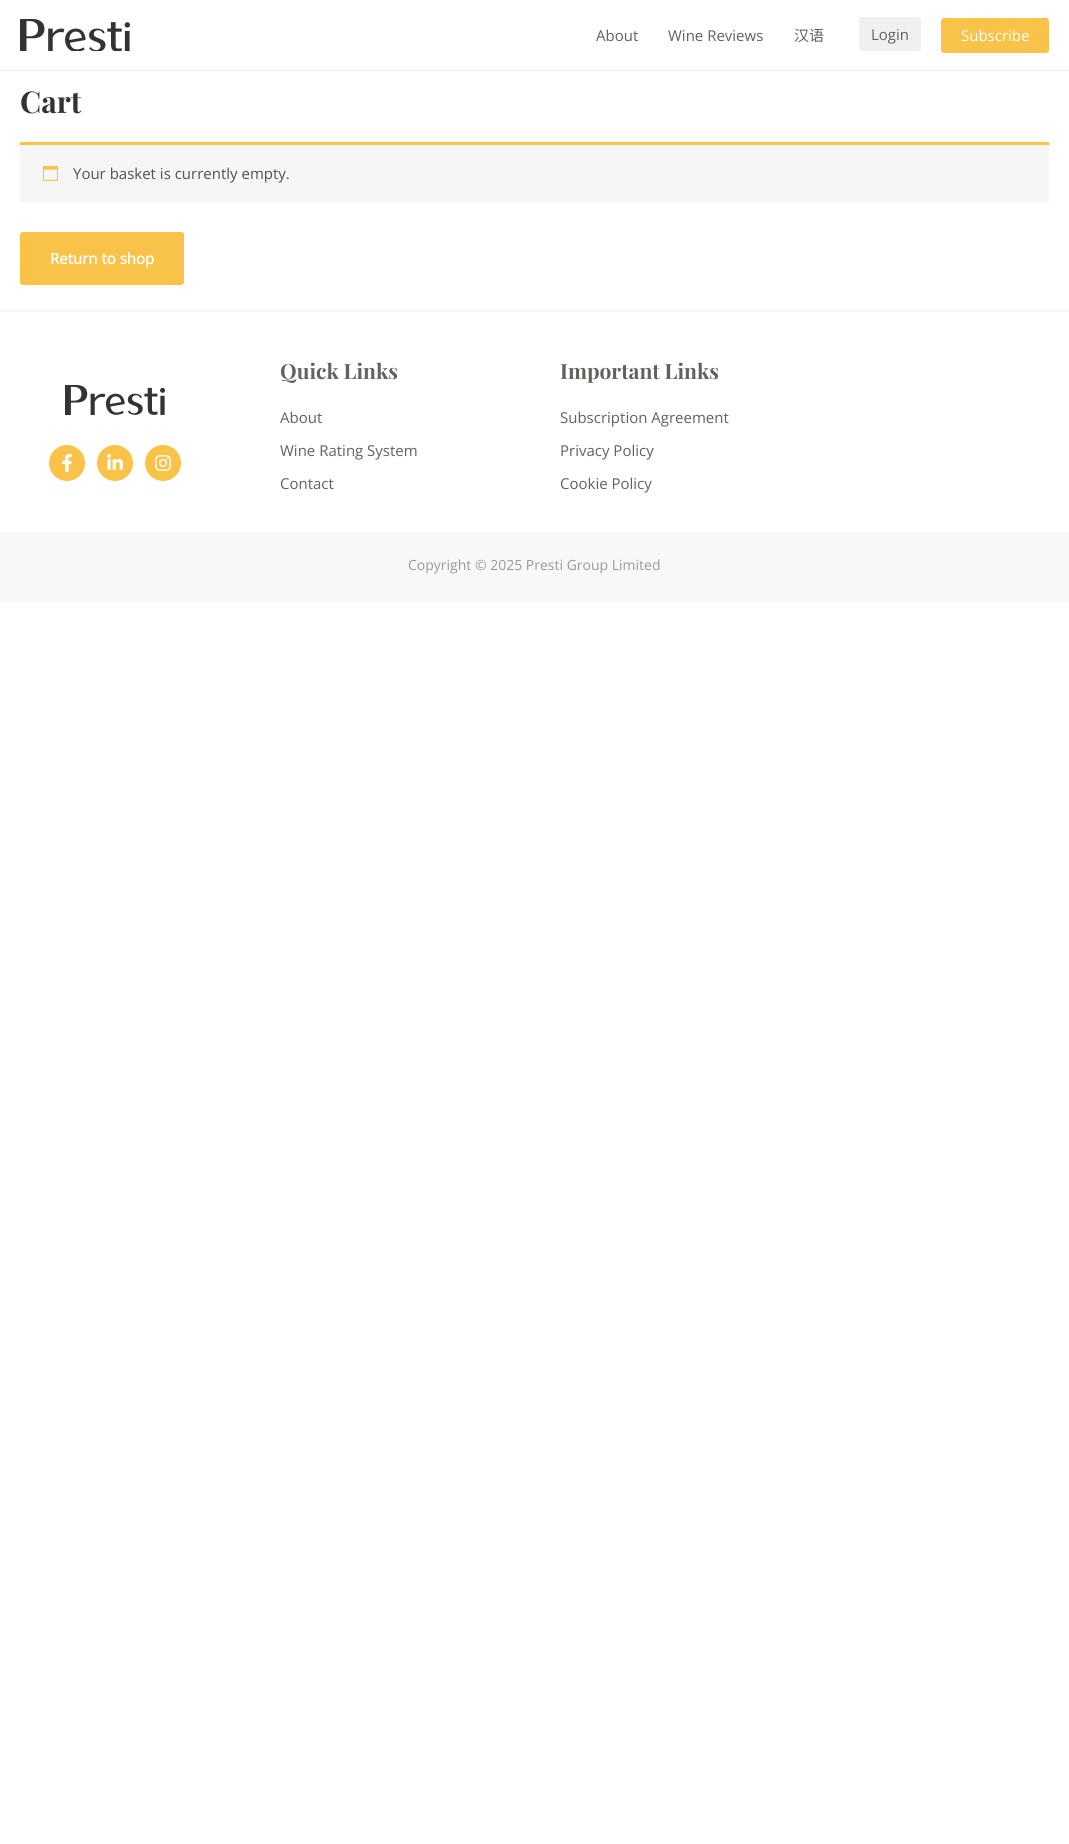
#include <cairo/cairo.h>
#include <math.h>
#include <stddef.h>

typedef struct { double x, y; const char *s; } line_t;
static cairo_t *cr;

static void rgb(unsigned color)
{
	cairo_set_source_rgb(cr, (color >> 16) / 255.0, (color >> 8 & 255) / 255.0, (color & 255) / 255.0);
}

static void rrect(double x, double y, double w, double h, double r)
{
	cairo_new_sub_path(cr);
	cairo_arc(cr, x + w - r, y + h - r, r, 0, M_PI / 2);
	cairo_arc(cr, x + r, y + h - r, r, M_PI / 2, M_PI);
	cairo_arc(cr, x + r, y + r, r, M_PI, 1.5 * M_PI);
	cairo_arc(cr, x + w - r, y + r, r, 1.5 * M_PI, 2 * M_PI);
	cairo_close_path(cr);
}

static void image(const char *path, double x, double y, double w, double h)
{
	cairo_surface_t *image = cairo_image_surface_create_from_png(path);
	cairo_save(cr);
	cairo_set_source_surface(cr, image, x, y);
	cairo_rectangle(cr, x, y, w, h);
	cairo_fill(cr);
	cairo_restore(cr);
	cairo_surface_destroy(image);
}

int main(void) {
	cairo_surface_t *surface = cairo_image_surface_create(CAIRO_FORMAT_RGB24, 1069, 1844);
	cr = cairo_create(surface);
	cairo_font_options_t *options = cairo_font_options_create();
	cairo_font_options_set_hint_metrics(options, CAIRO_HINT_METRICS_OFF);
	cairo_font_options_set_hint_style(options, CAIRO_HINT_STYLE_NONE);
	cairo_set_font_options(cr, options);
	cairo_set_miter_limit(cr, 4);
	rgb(0xffffff);
	cairo_paint(cr);
	rgb(0xededed);
	cairo_rectangle(cr, 0, 70, 1069, 1);
	cairo_fill(cr);
	image("img/1.png", 20, 19, 110, 32);
	rgb(0xf0f0f0);
	rrect(859, 17, 62, 34, 3);
	cairo_fill(cr);
	rgb(0xf9c349);
	rrect(941, 18, 108, 35, 3);
	cairo_fill(cr);
	rgb(0xf7f6f7);
	cairo_rectangle(cr, 20, 145, 1029, 57);
	cairo_fill(cr);
	rgb(0xf9c349);
	cairo_rectangle(cr, 20, 142, 1029, 3);
	cairo_fill(cr);
	image("img/2.png", 43, 165, 15, 16);
	rrect(20, 232, 164, 53, 3);
	cairo_fill(cr);
	rgb(0xf8f8f8);
	cairo_rectangle(cr, 0, 309, 1069, 3);
	cairo_fill(cr);
	image("img/3.png", 65, 385, 100, 30);
	rgb(0xf9c349);
	cairo_arc(cr, 67, 463, 18, 0, 2 * M_PI);
	cairo_fill(cr);
	image("img/4.png", 62, 454, 10, 18);
	cairo_arc(cr, 115, 463, 18, 0, 2 * M_PI);
	cairo_fill(cr);
	image("img/5.png", 107, 454, 16, 16);
	cairo_arc(cr, 163, 463, 18, 0, 2 * M_PI);
	cairo_fill(cr);
	image("img/6.png", 155, 455, 16, 16);
	rgb(0xf8f8f8);
	cairo_rectangle(cr, 0, 532, 1069, 70);
	cairo_fill(cr);
	cairo_select_font_face(cr, "Open Sans", CAIRO_FONT_SLANT_NORMAL, CAIRO_FONT_WEIGHT_NORMAL);
	cairo_set_font_size(cr, 15);
	rgb(0x62615c);
	cairo_move_to(cr, 596, 41);
	cairo_show_text(cr, "About");
	cairo_move_to(cr, 668, 41);
	cairo_show_text(cr, "Wine Reviews");
	cairo_select_font_face(cr, "Noto Sans CJK SC", CAIRO_FONT_SLANT_NORMAL, CAIRO_FONT_WEIGHT_NORMAL);
	cairo_move_to(cr, 794, 41);
	cairo_show_text(cr, "汉语");
	cairo_select_font_face(cr, "Open Sans", CAIRO_FONT_SLANT_NORMAL, CAIRO_FONT_WEIGHT_NORMAL);
	cairo_move_to(cr, 871, 40);
	cairo_show_text(cr, "Login");
	rgb(0xffffff);
	cairo_move_to(cr, 961, 41);
	cairo_show_text(cr, "Subscribe");
	cairo_select_font_face(cr, "Playfair Display", CAIRO_FONT_SLANT_NORMAL, CAIRO_FONT_WEIGHT_BOLD);
	cairo_set_font_size(cr, 30);
	rgb(0x333333);
	cairo_move_to(cr, 20, 113);
	cairo_show_text(cr, "Cart");
	cairo_select_font_face(cr, "Open Sans", CAIRO_FONT_SLANT_NORMAL, CAIRO_FONT_WEIGHT_NORMAL);
	cairo_set_font_size(cr, 15);
	rgb(0x515151);
	cairo_move_to(cr, 73, 179);
	cairo_show_text(cr, "Your basket is currently empty.");
	cairo_select_font_face(cr, "Open Sans", CAIRO_FONT_SLANT_NORMAL, CAIRO_FONT_WEIGHT_BOLD);
	rgb(0xffffff);
	cairo_move_to(cr, 50, 264);
	cairo_show_text(cr, "Return to shop");
	cairo_select_font_face(cr, "Playfair Display", CAIRO_FONT_SLANT_NORMAL, CAIRO_FONT_WEIGHT_BOLD);
	cairo_set_font_size(cr, 21);
	rgb(0x62615c);
	cairo_move_to(cr, 280, 379);
	cairo_show_text(cr, "Quick Links");
	cairo_select_font_face(cr, "Open Sans", CAIRO_FONT_SLANT_NORMAL, CAIRO_FONT_WEIGHT_NORMAL);
	cairo_set_font_size(cr, 15);
	{
		static const line_t items[] = {
			{280, 423, "About"},
			{280, 456, "Wine Rating System"},
			{280, 489, "Contact"},
		};
		for (size_t i = 0; i < sizeof items / sizeof *items; i++) {
			cairo_move_to(cr, items[i].x, items[i].y);
			cairo_show_text(cr, items[i].s);
		}
	}
	cairo_select_font_face(cr, "Playfair Display", CAIRO_FONT_SLANT_NORMAL, CAIRO_FONT_WEIGHT_BOLD);
	cairo_set_font_size(cr, 21);
	cairo_move_to(cr, 560, 379);
	cairo_show_text(cr, "Important Links");
	cairo_select_font_face(cr, "Open Sans", CAIRO_FONT_SLANT_NORMAL, CAIRO_FONT_WEIGHT_NORMAL);
	cairo_set_font_size(cr, 15);
	{
		static const line_t items[] = {
			{560, 423, "Subscription Agreement"},
			{560, 456, "Privacy Policy"},
			{560, 489, "Cookie Policy"},
		};
		for (size_t i = 0; i < sizeof items / sizeof *items; i++) {
			cairo_move_to(cr, items[i].x, items[i].y);
			cairo_show_text(cr, items[i].s);
		}
	}
	cairo_set_font_size(cr, 14);
	rgb(0x9a9a9a);
	cairo_move_to(cr, 408, 570);
	cairo_show_text(cr, "Copyright © 2025 Presti Group Limited");
	cairo_surface_write_to_png(surface, "page.png");
	cairo_font_options_destroy(options);
	cairo_destroy(cr);
	cairo_surface_destroy(surface);
	return 0;
}
